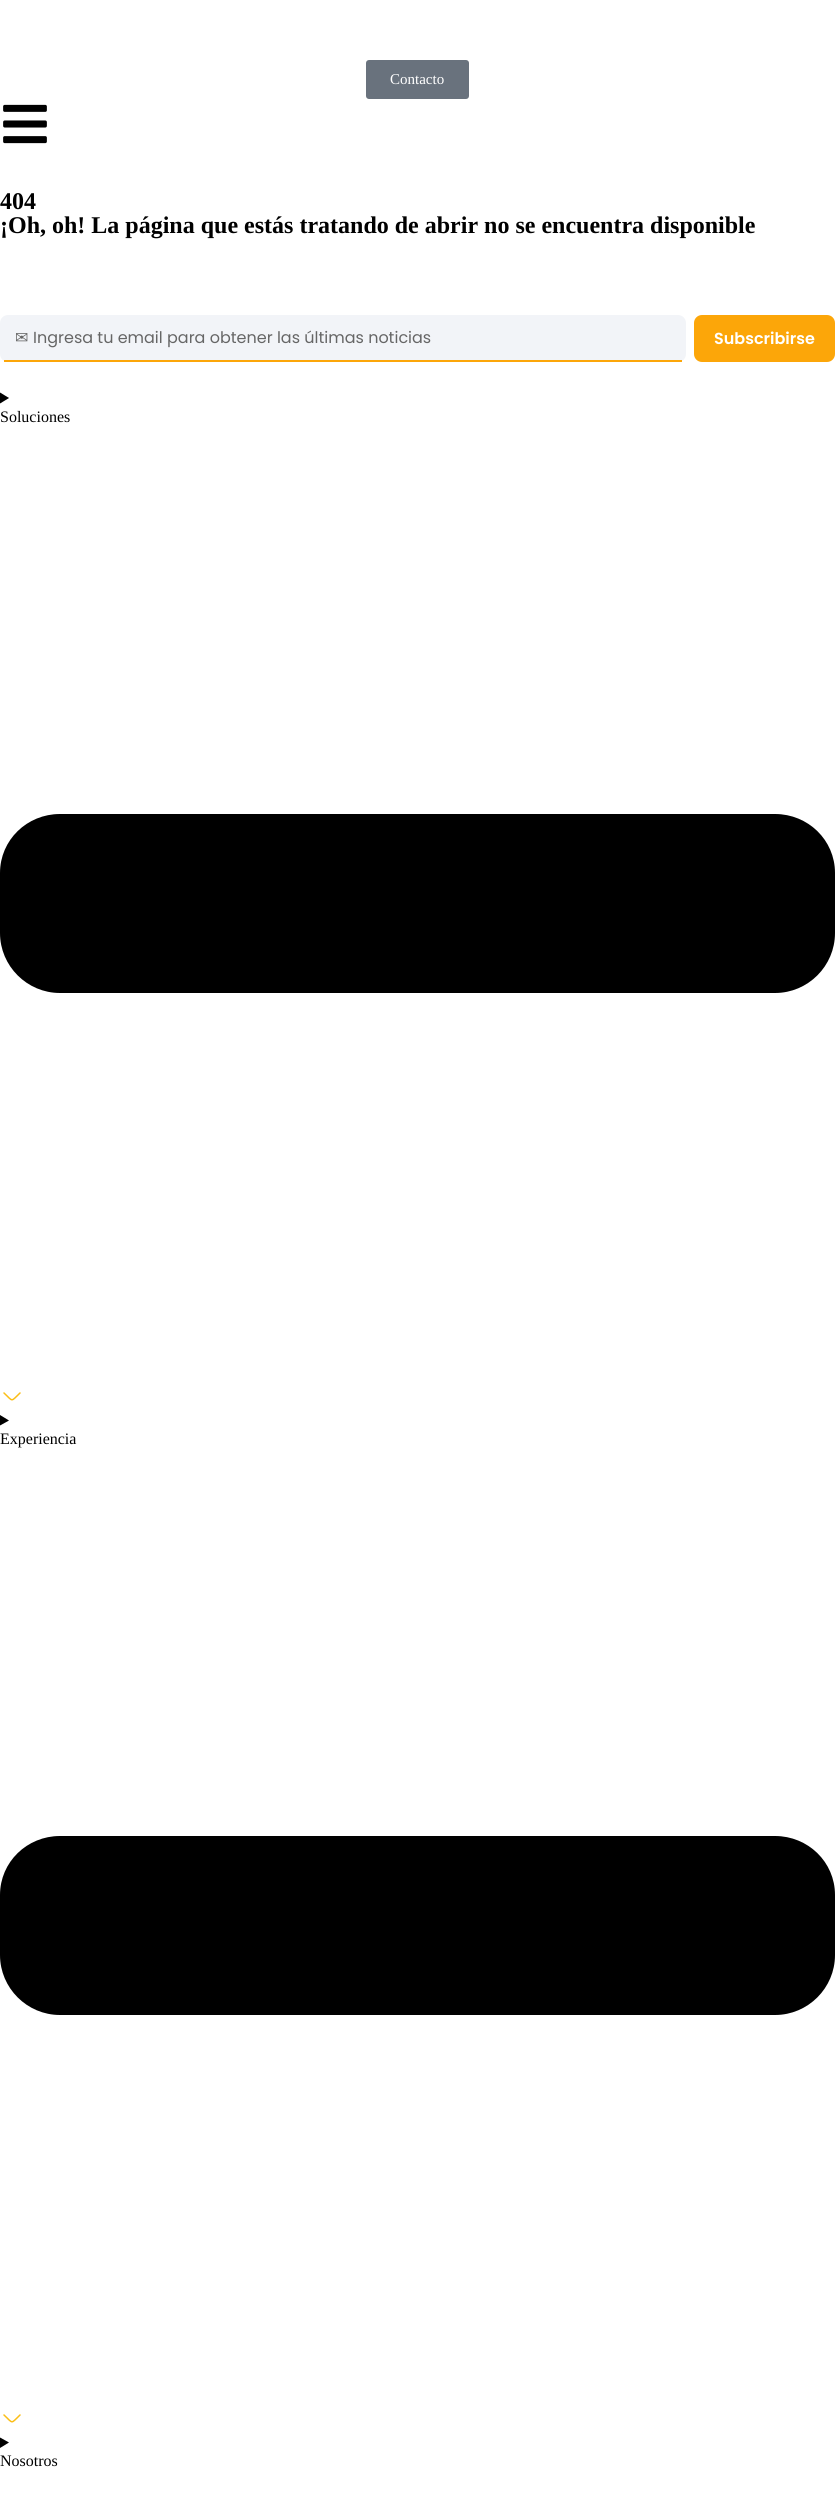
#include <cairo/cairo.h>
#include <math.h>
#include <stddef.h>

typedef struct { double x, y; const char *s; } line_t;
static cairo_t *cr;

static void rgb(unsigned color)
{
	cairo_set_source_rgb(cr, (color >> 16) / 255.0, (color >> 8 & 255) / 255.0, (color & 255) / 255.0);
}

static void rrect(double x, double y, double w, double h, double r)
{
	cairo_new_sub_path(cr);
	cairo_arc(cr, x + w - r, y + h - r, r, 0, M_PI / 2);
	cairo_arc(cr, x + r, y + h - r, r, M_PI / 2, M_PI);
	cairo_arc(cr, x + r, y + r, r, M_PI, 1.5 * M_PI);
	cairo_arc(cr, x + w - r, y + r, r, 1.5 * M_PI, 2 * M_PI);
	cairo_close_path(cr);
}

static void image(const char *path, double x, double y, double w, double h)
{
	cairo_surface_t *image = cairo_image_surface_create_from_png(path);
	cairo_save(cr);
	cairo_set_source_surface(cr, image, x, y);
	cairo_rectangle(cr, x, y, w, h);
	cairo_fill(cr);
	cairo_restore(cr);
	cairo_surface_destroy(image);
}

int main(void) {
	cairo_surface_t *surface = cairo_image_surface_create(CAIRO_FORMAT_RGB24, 835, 2502);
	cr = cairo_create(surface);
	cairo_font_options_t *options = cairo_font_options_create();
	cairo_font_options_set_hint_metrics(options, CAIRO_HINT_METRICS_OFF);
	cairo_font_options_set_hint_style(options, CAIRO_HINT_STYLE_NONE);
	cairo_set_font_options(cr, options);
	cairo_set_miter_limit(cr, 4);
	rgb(0xffffff);
	cairo_paint(cr);
	rgb(0x69727d);
	rrect(366, 60, 103, 39, 3);
	cairo_fill(cr);
	image("img/1.png", 3, 104, 44, 40);
	rgb(0xf2f4f8);
	rrect(0, 315, 686, 47, 8);
	cairo_fill(cr);
	rgb(0xfca609);
	cairo_rectangle(cr, 4, 360, 678, 2);
	cairo_fill(cr);
	rrect(694, 315, 141, 47, 8);
	cairo_fill(cr);
	rgb(0x000000);
	cairo_new_path(cr);
	cairo_move_to(cr, 0, 392.5);
	cairo_line_to(cr, 9, 398);
	cairo_line_to(cr, 0, 403.5);
	cairo_close_path(cr);
	cairo_fill(cr);
	cairo_new_path(cr);
	cairo_move_to(cr, 775, 814);
	cairo_line_to(cr, 60, 814);
	cairo_curve_to(cr, 27, 814, 0, 840, 0, 873);
	cairo_line_to(cr, 0, 933);
	cairo_curve_to(cr, 0, 966, 27, 993, 60, 993);
	cairo_line_to(cr, 775, 993);
	cairo_curve_to(cr, 808, 993, 835, 966, 835, 933);
	cairo_line_to(cr, 835, 873);
	cairo_curve_to(cr, 835, 840, 808, 814, 775, 814);
	cairo_close_path(cr);
	cairo_fill(cr);
	cairo_new_path(cr);
	cairo_move_to(cr, 4, 1393);
	cairo_curve_to(cr, 13.5, 1402, 10.5, 1402, 20, 1393);
	rgb(0xfbbe17);
	cairo_set_line_width(cr, 1.5);
	cairo_set_line_cap(cr, CAIRO_LINE_CAP_ROUND);
	cairo_set_line_join(cr, CAIRO_LINE_JOIN_ROUND);
	cairo_stroke(cr);
	rgb(0x000000);
	cairo_new_path(cr);
	cairo_move_to(cr, 0, 1415);
	cairo_line_to(cr, 9, 1420.5);
	cairo_line_to(cr, 0, 1425.5);
	cairo_close_path(cr);
	cairo_fill(cr);
	cairo_new_path(cr);
	cairo_move_to(cr, 775, 1836);
	cairo_line_to(cr, 60, 1836);
	cairo_curve_to(cr, 27, 1836, 0, 1862, 0, 1895);
	cairo_line_to(cr, 0, 1955);
	cairo_curve_to(cr, 0, 1988, 27, 2015, 60, 2015);
	cairo_line_to(cr, 775, 2015);
	cairo_curve_to(cr, 808, 2015, 835, 1988, 835, 1955);
	cairo_line_to(cr, 835, 1895);
	cairo_curve_to(cr, 835, 1862, 808, 1836, 775, 1836);
	cairo_close_path(cr);
	cairo_fill(cr);
	cairo_new_path(cr);
	cairo_move_to(cr, 4, 2415);
	cairo_curve_to(cr, 13.5, 2424, 10.5, 2424, 20, 2415);
	rgb(0xfbbe17);
	cairo_stroke(cr);
	rgb(0x000000);
	cairo_new_path(cr);
	cairo_move_to(cr, 0, 2437.5);
	cairo_line_to(cr, 9, 2442.5);
	cairo_line_to(cr, 0, 2448);
	cairo_close_path(cr);
	cairo_fill(cr);
	cairo_select_font_face(cr, "Liberation Serif", CAIRO_FONT_SLANT_NORMAL, CAIRO_FONT_WEIGHT_NORMAL);
	cairo_set_font_size(cr, 15);
	rgb(0xffffff);
	cairo_move_to(cr, 390, 84);
	cairo_show_text(cr, "Contacto");
	cairo_select_font_face(cr, "Liberation Serif", CAIRO_FONT_SLANT_NORMAL, CAIRO_FONT_WEIGHT_BOLD);
	cairo_set_font_size(cr, 24);
	rgb(0x000000);
	cairo_move_to(cr, 0, 209);
	cairo_show_text(cr, "404");
	cairo_move_to(cr, 0, 233);
	cairo_show_text(cr, "¡Oh, oh! La página que estás tratando de abrir no se encuentra disponible");
	cairo_select_font_face(cr, "DejaVu Sans", CAIRO_FONT_SLANT_NORMAL, CAIRO_FONT_WEIGHT_NORMAL);
	cairo_set_font_size(cr, 16);
	rgb(0x666666);
	cairo_move_to(cr, 15, 343);
	cairo_show_text(cr, "✉");
	cairo_select_font_face(cr, "Poppins", CAIRO_FONT_SLANT_NORMAL, CAIRO_FONT_WEIGHT_NORMAL);
	cairo_move_to(cr, 33, 343);
	cairo_show_text(cr, "Ingresa tu email para obtener las últimas noticias");
	cairo_select_font_face(cr, "Poppins SemiBold", CAIRO_FONT_SLANT_NORMAL, CAIRO_FONT_WEIGHT_NORMAL);
	rgb(0xffffff);
	cairo_move_to(cr, 714, 344);
	cairo_show_text(cr, "Subscribirse");
	cairo_select_font_face(cr, "Liberation Serif", CAIRO_FONT_SLANT_NORMAL, CAIRO_FONT_WEIGHT_NORMAL);
	rgb(0x000000);
	{
		static const line_t items[] = {
			{0, 422, "Soluciones"},
			{0, 1444, "Experiencia"},
			{0, 2466, "Nosotros"},
		};
		for (size_t i = 0; i < sizeof items / sizeof *items; i++) {
			cairo_move_to(cr, items[i].x, items[i].y);
			cairo_show_text(cr, items[i].s);
		}
	}
	cairo_surface_write_to_png(surface, "page.png");
	cairo_font_options_destroy(options);
	cairo_destroy(cr);
	cairo_surface_destroy(surface);
	return 0;
}
